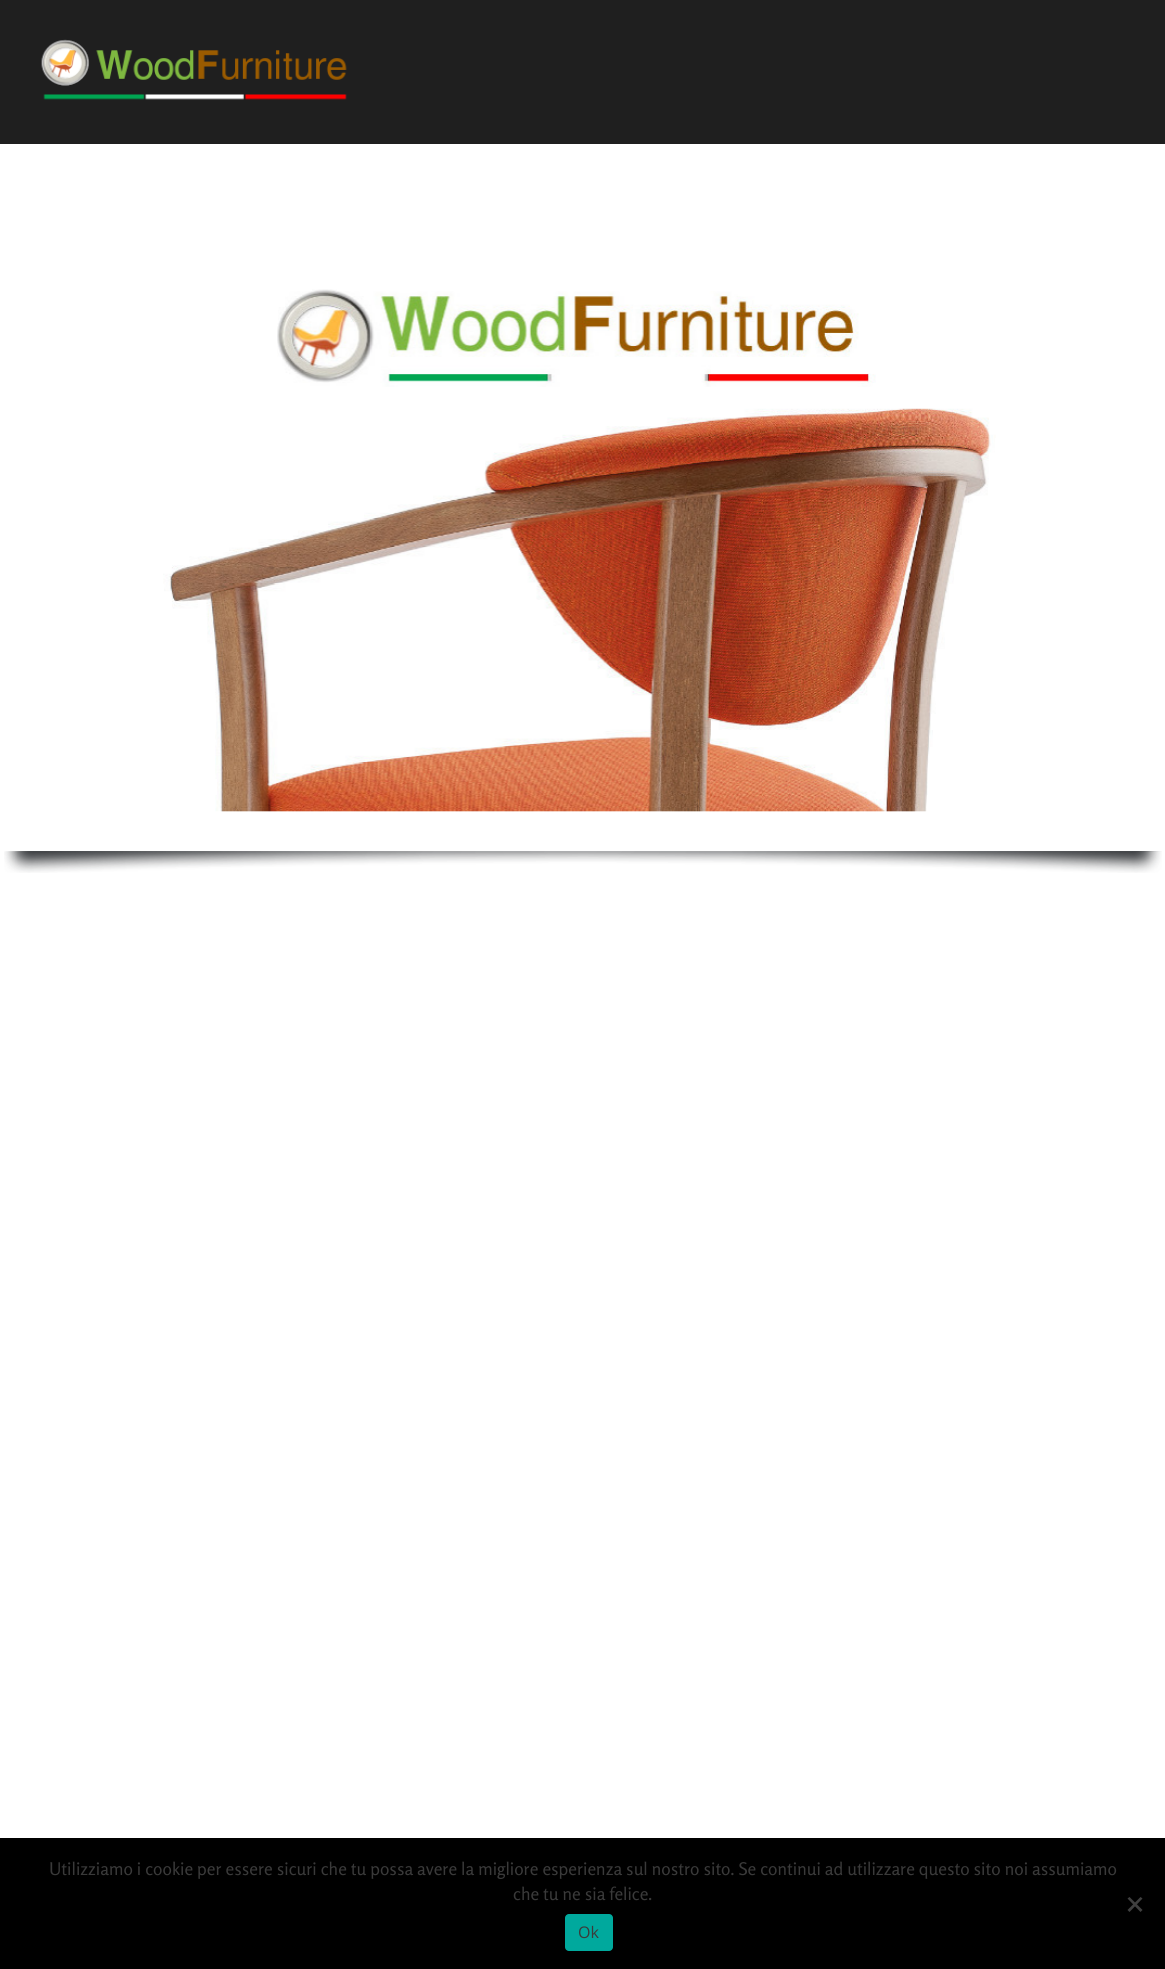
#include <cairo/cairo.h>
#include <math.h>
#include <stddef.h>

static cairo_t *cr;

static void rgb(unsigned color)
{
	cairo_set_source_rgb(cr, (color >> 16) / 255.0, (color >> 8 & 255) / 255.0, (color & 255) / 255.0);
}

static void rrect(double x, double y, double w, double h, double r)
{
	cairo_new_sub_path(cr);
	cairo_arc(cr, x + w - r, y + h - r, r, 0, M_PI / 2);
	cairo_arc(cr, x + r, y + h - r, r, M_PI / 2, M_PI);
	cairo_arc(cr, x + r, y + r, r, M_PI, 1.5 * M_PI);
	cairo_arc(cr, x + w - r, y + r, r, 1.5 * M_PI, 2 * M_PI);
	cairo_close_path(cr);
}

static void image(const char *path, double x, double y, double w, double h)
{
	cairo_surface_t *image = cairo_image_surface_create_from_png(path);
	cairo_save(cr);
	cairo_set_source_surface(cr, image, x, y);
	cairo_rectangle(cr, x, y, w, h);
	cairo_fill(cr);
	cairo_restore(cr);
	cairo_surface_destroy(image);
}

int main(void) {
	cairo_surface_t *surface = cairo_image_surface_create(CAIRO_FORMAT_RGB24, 1165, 1969);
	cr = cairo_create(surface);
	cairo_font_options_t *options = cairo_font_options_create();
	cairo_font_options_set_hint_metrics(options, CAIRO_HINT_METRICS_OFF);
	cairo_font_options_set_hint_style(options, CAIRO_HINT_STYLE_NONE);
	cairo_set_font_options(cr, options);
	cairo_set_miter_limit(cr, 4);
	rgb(0xffffff);
	cairo_paint(cr);
	rgb(0x1f1f1f);
	cairo_rectangle(cr, 0, 0, 1165, 144);
	cairo_fill(cr);
	image("img/1.png", 41, 39, 306, 61);
	image("img/2.png", 312, 289, 25, 2);
	image("img/3.png", 285, 291, 565, 16);
	image("img/4.png", 278, 307, 581, 16);
	image("img/5.png", 277, 323, 582, 17);
	image("img/6.png", 277, 340, 580, 17);
	image("img/7.png", 282, 356, 429, 17);
	image("img/8.png", 289, 373, 587, 14);
	image("img/9.png", 667, 408, 322, 13);
	image("img/10.png", 562, 421, 434, 17);
	image("img/11.png", 494, 437, 501, 17);
	image("img/34.png", 290, 446, 204, 89);
	image("img/12.png", 485, 453, 504, 17);
	image("img/13.png", 484, 470, 505, 17);
	image("img/14.png", 433, 486, 555, 17);
	image("img/15.png", 364, 502, 600, 17);
	image("img/16.png", 298, 518, 664, 17);
	image("img/17.png", 229, 535, 731, 17);
	image("img/18.png", 172, 552, 782, 15);
	image("img/19.png", 163, 567, 791, 17);
	image("img/20.png", 164, 583, 785, 17);
	image("img/21.png", 172, 600, 773, 17);
	image("img/22.png", 207, 617, 736, 15);
	image("img/23.png", 207, 632, 738, 17);
	image("img/24.png", 215, 649, 722, 16);
	image("img/25.png", 215, 665, 721, 17);
	image("img/26.png", 215, 681, 718, 17);
	image("img/27.png", 216, 697, 720, 17);
	image("img/28.png", 216, 714, 715, 16);
	image("img/29.png", 215, 730, 718, 17);
	image("img/30.png", 215, 746, 715, 17);
	image("img/31.png", 215, 762, 713, 17);
	image("img/32.png", 217, 779, 711, 16);
	image("img/33.png", 215, 795, 712, 17);
	image("img/35.png", 4, 851, 1158, 22);
	rgb(0x000000);
	cairo_rectangle(cr, 0, 1838, 1165, 131);
	cairo_fill(cr);
	rgb(0x404040);
	cairo_new_path(cr);
	cairo_move_to(cr, 1140.5, 1897);
	cairo_line_to(cr, 1142.5, 1898.5);
	cairo_line_to(cr, 1129.5, 1912);
	cairo_line_to(cr, 1127.5, 1910);
	cairo_close_path(cr);
	cairo_fill(cr);
	cairo_new_path(cr);
	cairo_move_to(cr, 1127.5, 1898.5);
	cairo_line_to(cr, 1129.5, 1897);
	cairo_line_to(cr, 1142.5, 1910);
	cairo_line_to(cr, 1140.5, 1912);
	cairo_close_path(cr);
	cairo_fill(cr);
	rgb(0x00a99d);
	rrect(565, 1914, 48, 37, 4);
	cairo_fill(cr);
	cairo_select_font_face(cr, "Rosario", CAIRO_FONT_SLANT_NORMAL, CAIRO_FONT_WEIGHT_NORMAL);
	cairo_set_font_size(cr, 17.5);
	rgb(0x3a3a3a);
	cairo_move_to(cr, 49, 1875);
	cairo_show_text(cr, "Utilizziamo i cookie per essere sicuri che tu possa avere la migliore esperienza sul nostro sito. Se continui ad utilizzare questo sito noi assumiamo");
	cairo_move_to(cr, 513, 1900);
	cairo_show_text(cr, "che tu ne sia felice.");
	cairo_select_font_face(cr, "Open Sans", CAIRO_FONT_SLANT_NORMAL, CAIRO_FONT_WEIGHT_NORMAL);
	cairo_set_font_size(cr, 16);
	cairo_move_to(cr, 578, 1938);
	cairo_show_text(cr, "Ok");
	cairo_surface_write_to_png(surface, "page.png");
	cairo_font_options_destroy(options);
	cairo_destroy(cr);
	cairo_surface_destroy(surface);
	return 0;
}
